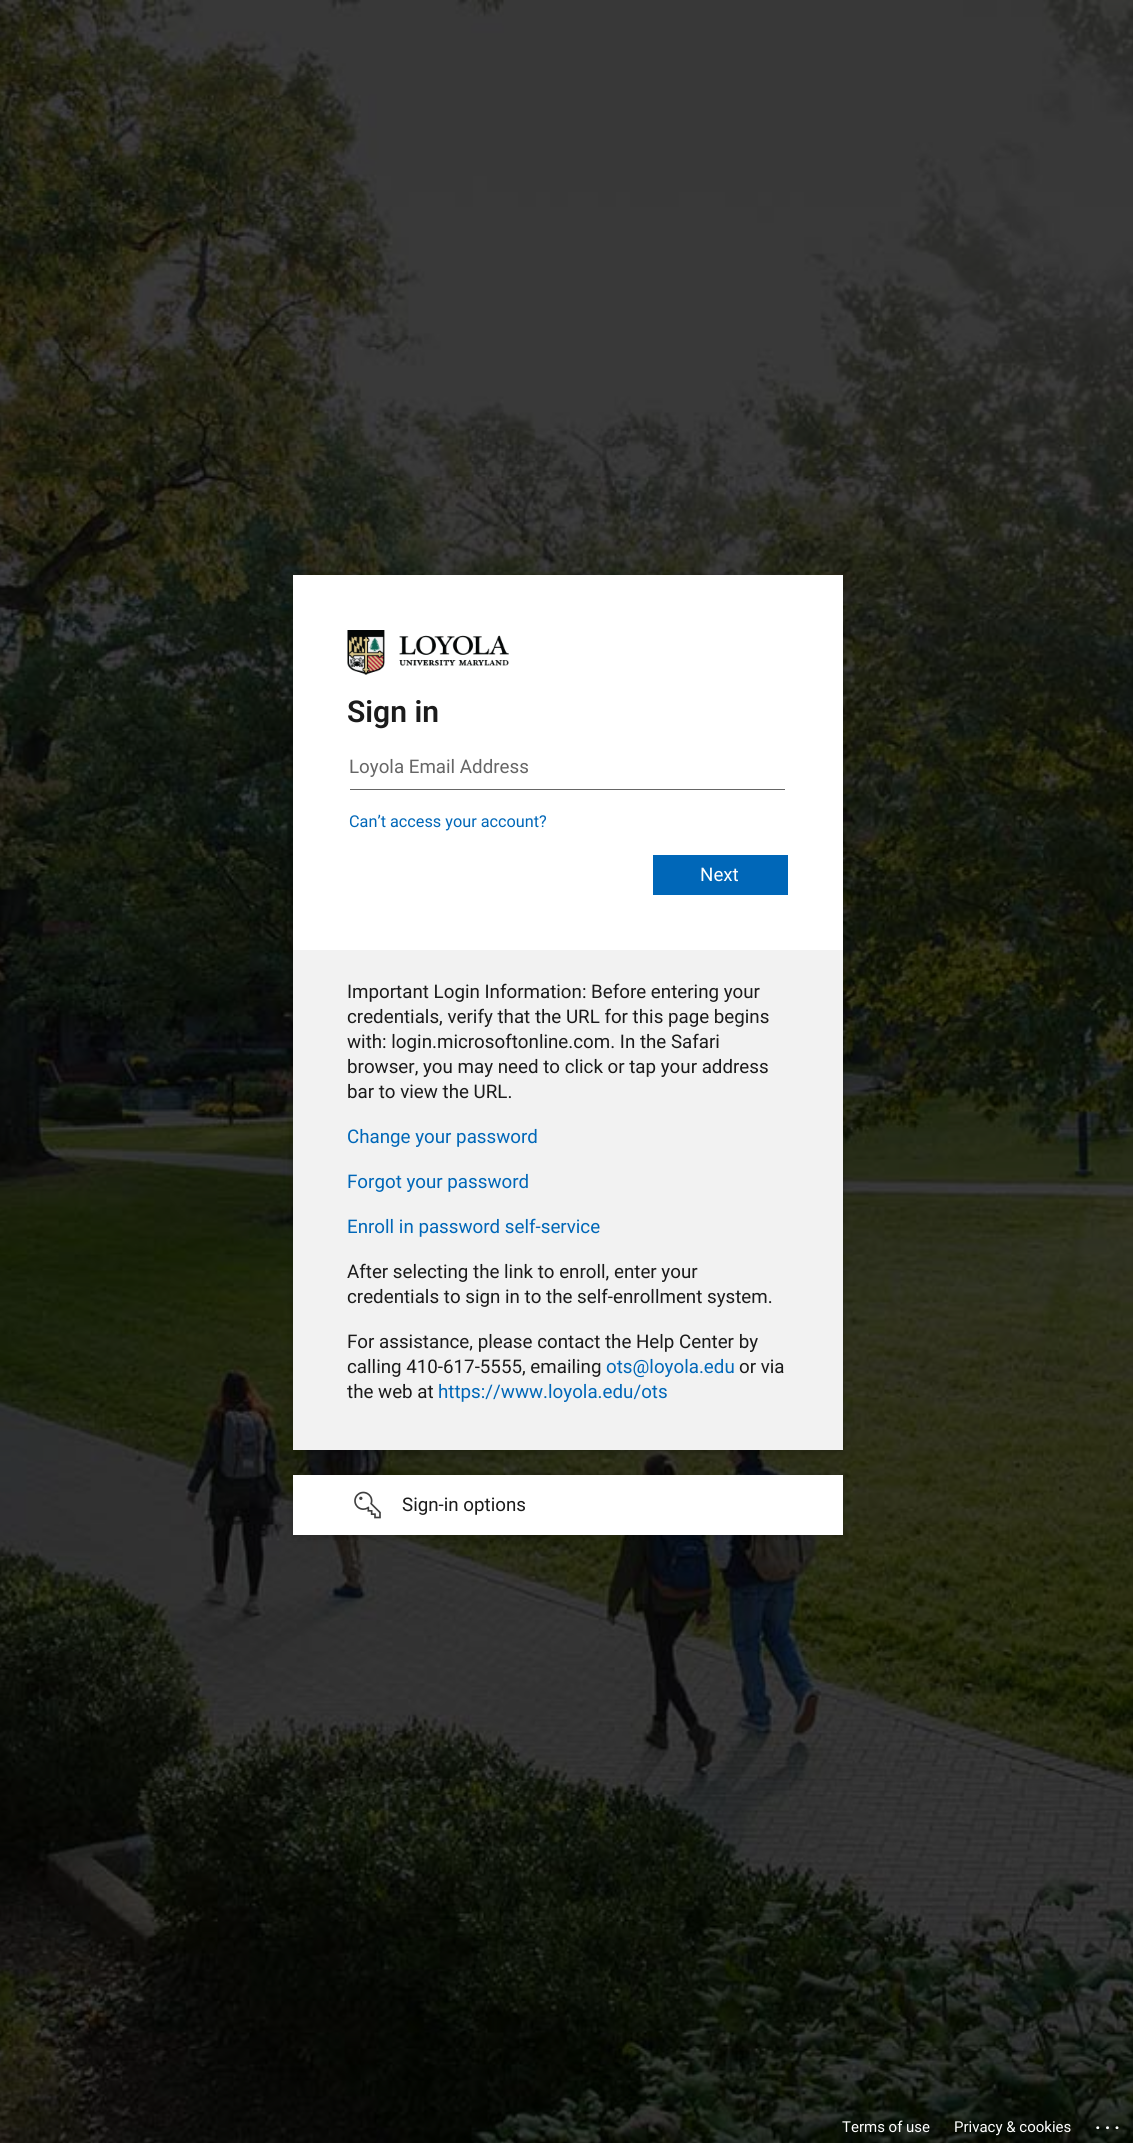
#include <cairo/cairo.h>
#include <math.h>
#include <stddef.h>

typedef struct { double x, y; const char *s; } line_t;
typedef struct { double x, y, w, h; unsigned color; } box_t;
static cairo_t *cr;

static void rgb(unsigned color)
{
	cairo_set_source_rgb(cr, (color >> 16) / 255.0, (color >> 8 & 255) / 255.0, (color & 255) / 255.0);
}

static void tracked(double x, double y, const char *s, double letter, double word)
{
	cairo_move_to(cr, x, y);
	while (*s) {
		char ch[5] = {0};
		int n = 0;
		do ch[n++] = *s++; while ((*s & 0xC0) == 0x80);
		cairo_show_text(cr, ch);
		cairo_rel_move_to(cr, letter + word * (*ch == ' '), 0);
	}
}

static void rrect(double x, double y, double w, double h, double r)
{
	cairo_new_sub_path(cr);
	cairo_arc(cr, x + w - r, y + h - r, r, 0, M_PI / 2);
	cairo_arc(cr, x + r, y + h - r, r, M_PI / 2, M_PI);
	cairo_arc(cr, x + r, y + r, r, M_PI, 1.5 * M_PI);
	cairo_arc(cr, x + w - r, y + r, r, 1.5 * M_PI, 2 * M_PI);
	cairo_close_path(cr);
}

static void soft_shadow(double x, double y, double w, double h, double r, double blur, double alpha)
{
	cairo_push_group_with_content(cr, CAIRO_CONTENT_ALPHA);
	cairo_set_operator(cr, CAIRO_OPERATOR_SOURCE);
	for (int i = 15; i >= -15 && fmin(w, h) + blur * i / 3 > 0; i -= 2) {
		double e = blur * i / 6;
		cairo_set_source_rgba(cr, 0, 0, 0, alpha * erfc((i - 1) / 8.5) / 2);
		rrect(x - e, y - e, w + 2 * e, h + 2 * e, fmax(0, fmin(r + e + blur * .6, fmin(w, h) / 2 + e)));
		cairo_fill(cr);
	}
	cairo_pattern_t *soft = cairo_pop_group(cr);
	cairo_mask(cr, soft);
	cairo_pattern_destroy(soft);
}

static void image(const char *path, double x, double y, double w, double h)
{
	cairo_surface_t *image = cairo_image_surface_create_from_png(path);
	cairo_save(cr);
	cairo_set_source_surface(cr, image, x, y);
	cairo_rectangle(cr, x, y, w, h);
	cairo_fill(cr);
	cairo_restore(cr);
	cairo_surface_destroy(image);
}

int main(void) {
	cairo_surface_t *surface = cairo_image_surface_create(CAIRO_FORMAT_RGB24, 1133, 2143);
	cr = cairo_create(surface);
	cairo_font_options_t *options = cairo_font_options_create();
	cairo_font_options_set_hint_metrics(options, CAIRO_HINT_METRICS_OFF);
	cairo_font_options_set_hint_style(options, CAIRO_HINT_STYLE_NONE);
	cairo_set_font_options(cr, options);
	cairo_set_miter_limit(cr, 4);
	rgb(0xffffff);
	cairo_paint(cr);
	image("img/1.png", 0, 0, 1133, 2143);
	rgb(0x000000);
	soft_shadow(293, 578, 550, 875, 0, 4, 0.2);
	rgb(0xffffff);
	cairo_rectangle(cr, 293, 575, 550, 375);
	cairo_fill(cr);
	image("img/2.png", 347, 630, 162, 45);
	{
		static const box_t items[] = {
			{350, 789, 435, 1, 0x666666},
			{653, 855, 135, 40, 0x0067b8},
			{293, 950, 550, 500, 0xf2f2f2},
		};
		for (size_t i = 0; i < sizeof items / sizeof *items; i++) {
			rgb(items[i].color);
			cairo_rectangle(cr, items[i].x, items[i].y, items[i].w, items[i].h);
			cairo_fill(cr);
		}
	}
	rgb(0x000000);
	soft_shadow(293, 1478, 550, 60, 0, 4, 0.2);
	rgb(0xffffff);
	cairo_rectangle(cr, 293, 1475, 550, 60);
	cairo_fill(cr);
	image("img/3.png", 354, 1491, 27, 28);
	cairo_select_font_face(cr, "Roboto SemiBold", CAIRO_FONT_SLANT_NORMAL, CAIRO_FONT_WEIGHT_NORMAL);
	cairo_set_font_size(cr, 30);
	rgb(0x1b1b1b);
	cairo_move_to(cr, 347, 722);
	cairo_show_text(cr, "Sign in");
	cairo_select_font_face(cr, "Roboto", CAIRO_FONT_SLANT_NORMAL, CAIRO_FONT_WEIGHT_NORMAL);
	cairo_set_font_size(cr, 18.75);
	rgb(0x666666);
	cairo_move_to(cr, 349, 773);
	cairo_show_text(cr, "Loyola Email Address");
	cairo_set_font_size(cr, 16.25);
	rgb(0x0067b8);
	cairo_move_to(cr, 349, 827);
	cairo_show_text(cr, "Can’t access your account?");
	cairo_set_font_size(cr, 18.75);
	rgb(0xffffff);
	cairo_move_to(cr, 700, 881);
	cairo_show_text(cr, "Next");
	rgb(0x1b1b1b);
	{
		static const line_t items[] = {
			{347, 998, "Important Login Information: Before entering your"},
			{347, 1023, "credentials, verify that the URL for this page begins"},
			{347, 1048, "with: login.microsoftonline.com. In the Safari"},
			{347, 1073, "browser, you may need to click or tap your address"},
			{347, 1098, "bar to view the URL."},
		};
		for (size_t i = 0; i < sizeof items / sizeof *items; i++) {
			cairo_move_to(cr, items[i].x, items[i].y);
			cairo_show_text(cr, items[i].s);
		}
	}
	rgb(0x0067b8);
	{
		static const line_t items[] = {
			{347, 1143, "Change your password"},
			{347, 1188, "Forgot your password"},
			{347, 1233, "Enroll in password self-service"},
		};
		for (size_t i = 0; i < sizeof items / sizeof *items; i++) {
			cairo_move_to(cr, items[i].x, items[i].y);
			cairo_show_text(cr, items[i].s);
		}
	}
	rgb(0x1b1b1b);
	{
		static const line_t items[] = {
			{347, 1278, "After selecting the link to enroll, enter your"},
			{347, 1303, "credentials to sign in to the self-enrollment system."},
			{347, 1348, "For assistance, please contact the Help Center by"},
			{347, 1373, "calling 410-617-5555, emailing"},
		};
		for (size_t i = 0; i < sizeof items / sizeof *items; i++) {
			cairo_move_to(cr, items[i].x, items[i].y);
			cairo_show_text(cr, items[i].s);
		}
	}
	rgb(0x0067b8);
	cairo_move_to(cr, 606, 1373);
	cairo_show_text(cr, "ots@loyola.edu");
	rgb(0x1b1b1b);
	cairo_move_to(cr, 739, 1373);
	cairo_show_text(cr, "or via");
	cairo_move_to(cr, 347, 1398);
	cairo_show_text(cr, "the web at");
	rgb(0x0067b8);
	cairo_move_to(cr, 438, 1398);
	cairo_show_text(cr, "https://www.loyola.edu/ots");
	rgb(0x1b1b1b);
	cairo_move_to(cr, 402, 1511);
	cairo_show_text(cr, "Sign-in options");
	cairo_set_font_size(cr, 15);
	rgb(0xffffff);
	cairo_move_to(cr, 842, 2132);
	cairo_show_text(cr, "Terms of use");
	cairo_move_to(cr, 954, 2132);
	cairo_show_text(cr, "Privacy & cookies");
	cairo_select_font_face(cr, "Roboto SemiBold", CAIRO_FONT_SLANT_NORMAL, CAIRO_FONT_WEIGHT_NORMAL);
	cairo_set_font_size(cr, 20);
	tracked(1095, 2129, "...", 4, 0);
	cairo_surface_write_to_png(surface, "page.png");
	cairo_font_options_destroy(options);
	cairo_destroy(cr);
	cairo_surface_destroy(surface);
	return 0;
}
